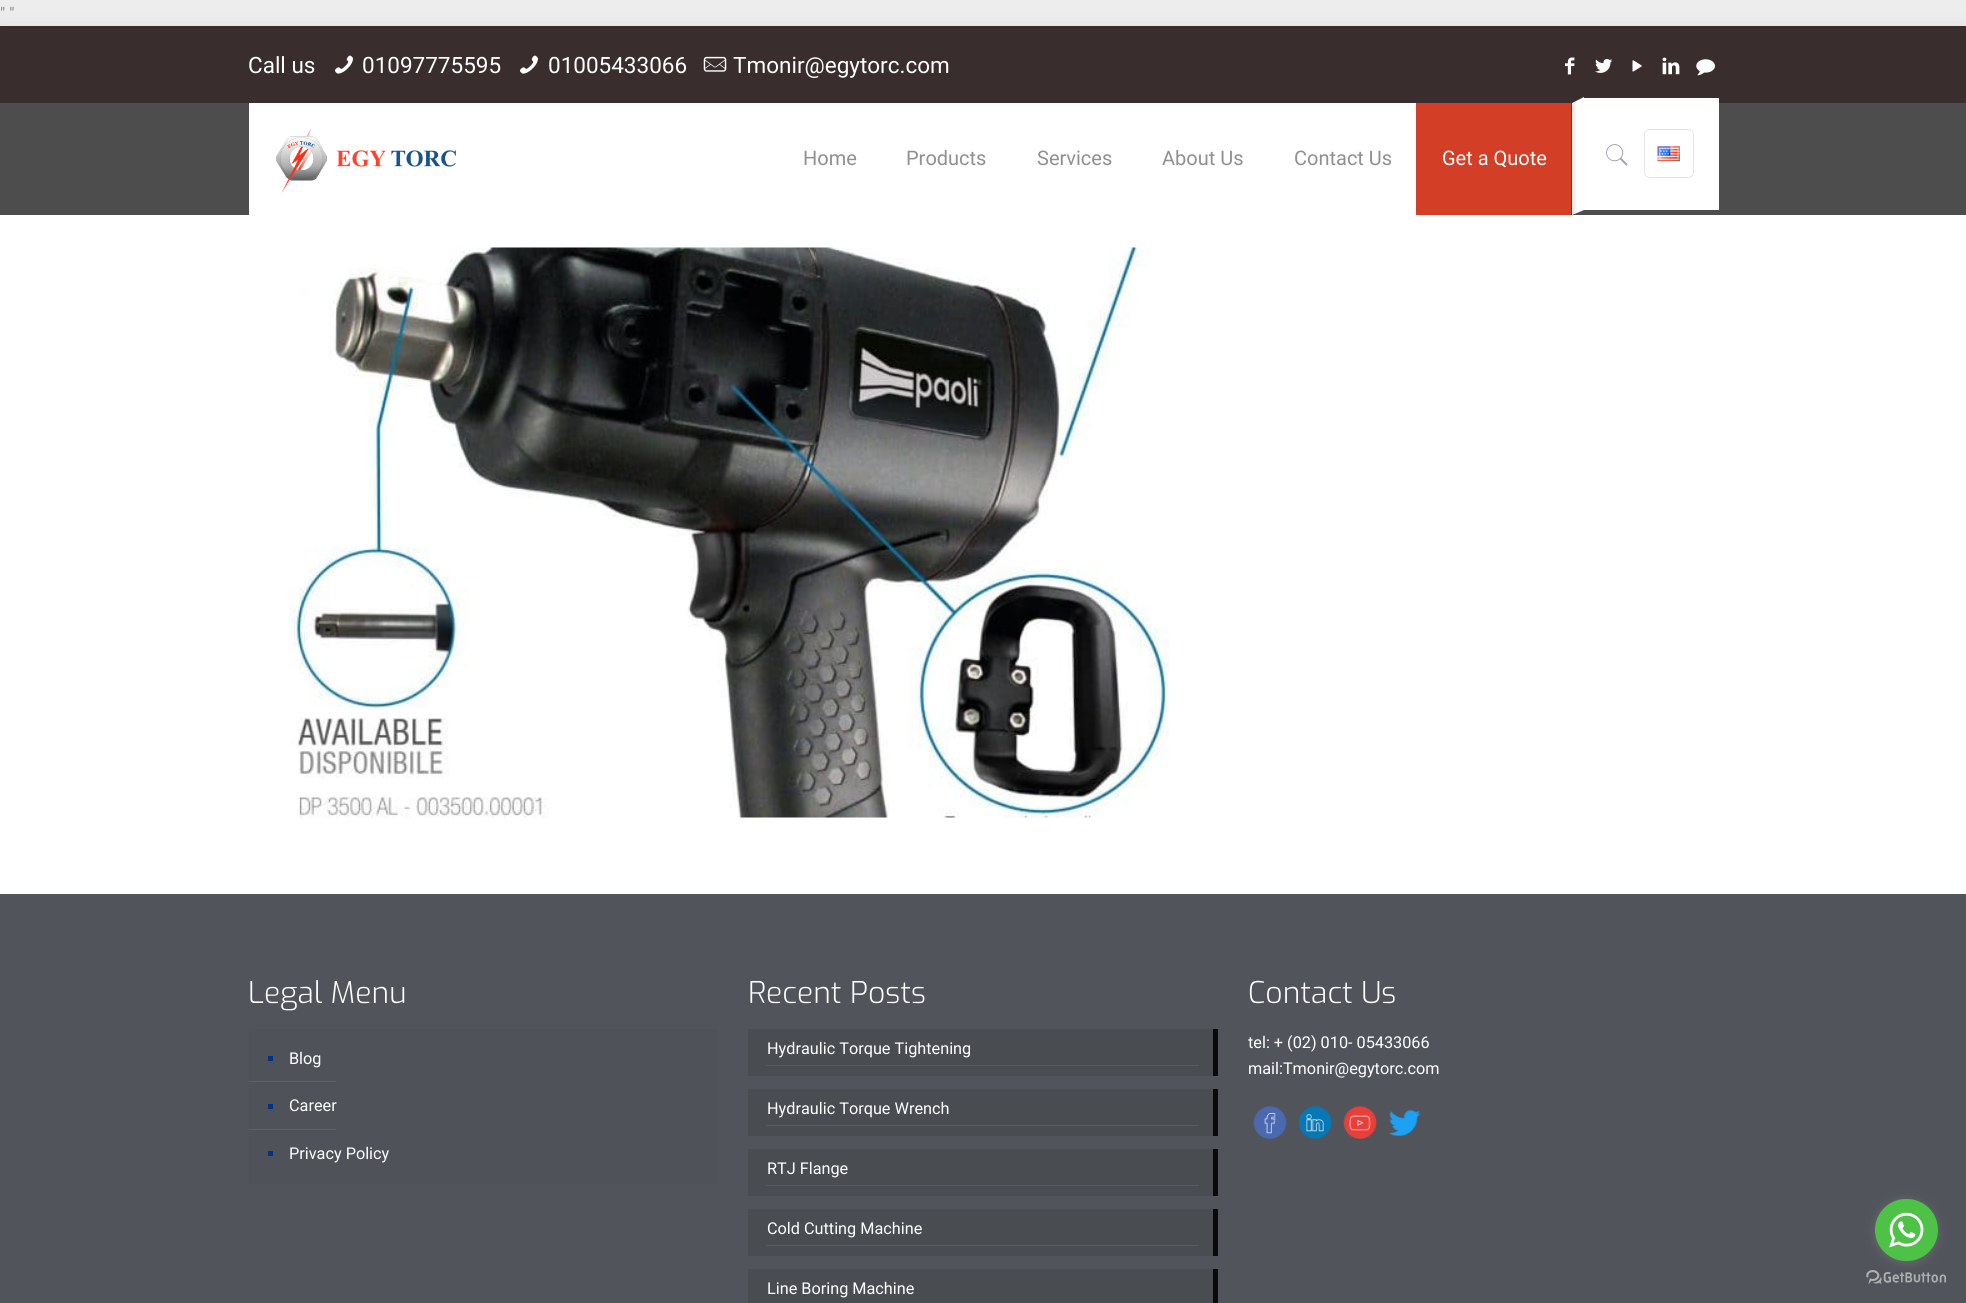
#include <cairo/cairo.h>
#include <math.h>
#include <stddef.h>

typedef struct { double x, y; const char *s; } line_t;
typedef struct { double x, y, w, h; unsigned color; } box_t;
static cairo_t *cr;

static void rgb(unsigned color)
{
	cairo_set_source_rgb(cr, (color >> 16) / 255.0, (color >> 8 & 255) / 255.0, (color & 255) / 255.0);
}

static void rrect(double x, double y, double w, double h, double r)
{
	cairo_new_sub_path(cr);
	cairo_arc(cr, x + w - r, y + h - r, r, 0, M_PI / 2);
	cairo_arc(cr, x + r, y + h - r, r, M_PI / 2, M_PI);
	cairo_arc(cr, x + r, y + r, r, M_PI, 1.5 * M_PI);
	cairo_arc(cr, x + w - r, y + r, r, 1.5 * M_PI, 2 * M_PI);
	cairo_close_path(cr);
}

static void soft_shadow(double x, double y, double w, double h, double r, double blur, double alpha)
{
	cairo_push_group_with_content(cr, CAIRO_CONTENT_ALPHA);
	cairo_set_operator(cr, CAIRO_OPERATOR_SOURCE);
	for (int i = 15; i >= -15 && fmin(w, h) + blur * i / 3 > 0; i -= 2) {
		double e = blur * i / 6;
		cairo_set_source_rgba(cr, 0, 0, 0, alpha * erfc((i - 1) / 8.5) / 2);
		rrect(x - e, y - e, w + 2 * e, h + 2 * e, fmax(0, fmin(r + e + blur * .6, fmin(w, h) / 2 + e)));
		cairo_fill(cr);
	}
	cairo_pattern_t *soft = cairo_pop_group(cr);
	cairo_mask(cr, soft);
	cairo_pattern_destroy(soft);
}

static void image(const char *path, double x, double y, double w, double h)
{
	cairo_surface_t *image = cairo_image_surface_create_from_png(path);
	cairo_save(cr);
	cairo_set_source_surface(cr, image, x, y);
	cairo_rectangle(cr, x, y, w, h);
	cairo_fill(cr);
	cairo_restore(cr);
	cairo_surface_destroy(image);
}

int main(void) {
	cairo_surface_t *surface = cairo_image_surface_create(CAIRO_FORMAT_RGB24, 1966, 1303);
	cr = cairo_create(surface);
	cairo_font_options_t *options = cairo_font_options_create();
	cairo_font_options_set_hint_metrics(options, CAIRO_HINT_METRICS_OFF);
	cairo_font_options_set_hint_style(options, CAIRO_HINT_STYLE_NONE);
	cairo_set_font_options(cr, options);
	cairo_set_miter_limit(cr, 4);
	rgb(0xededed);
	cairo_paint(cr);
	rgb(0x000000);
	soft_shadow(0, 26, 1966, 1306, 0, 9.5, 0.06);
	rgb(0xffffff);
	cairo_rectangle(cr, 0, 215, 1966, 679);
	cairo_fill(cr);
	rgb(0x3a2d2d);
	cairo_rectangle(cr, 0, 26, 1966, 77);
	cairo_fill(cr);
	image("img/1.png", 335, 55, 18, 19);
	image("img/1.png", 520, 55, 18, 19);
	image("img/2.png", 703, 56, 24, 16);
	image("img/3.png", 1565, 57, 10, 18);
	image("img/4.png", 1595, 59, 18, 14);
	image("img/5.png", 1632, 60, 10, 12);
	image("img/6.png", 1662, 57, 18, 18);
	image("img/7.png", 1696, 59, 19, 17);
	rgb(0x4d4d4d);
	cairo_rectangle(cr, 0, 103, 1966, 112);
	cairo_fill(cr);
	rgb(0xffffff);
	cairo_rectangle(cr, 249, 103, 1167, 112);
	cairo_fill(cr);
	image("img/8.png", 276, 128, 180, 65);
	rgb(0xd23e26);
	cairo_rectangle(cr, 1416, 103, 155, 112);
	cairo_fill(cr);
	rgb(0xffffff);
	cairo_rectangle(cr, 1584, 98, 135, 112);
	cairo_fill(cr);
	cairo_new_path(cr);
	cairo_move_to(cr, 1572, 103);
	cairo_line_to(cr, 1584, 97);
	cairo_line_to(cr, 1584, 210);
	cairo_line_to(cr, 1572, 215);
	cairo_close_path(cr);
	cairo_fill(cr);
	image("img/9.png", 1571, 101, 6, 115);
	image("img/10.png", 1606, 144, 22, 22);
	rrect(1644.5, 129.5, 49, 48, 5.5);
	rgb(0xe6e6e6);
	cairo_set_line_width(cr, 1);
	cairo_stroke(cr);
	image("img/11.png", 1657, 146, 23, 16);
	image("img/12.png", 289, 247, 880, 571);
	{
		static const box_t items[] = {
			{0, 894, 1966, 409, 0x51555b},
			{249, 1029, 469, 155, 0x4f5258},
			{268, 1056, 5, 5, 0x013382},
			{249, 1081, 87, 1, 0x5d6065},
			{268, 1104, 5, 5, 0x013382},
			{249, 1129, 87, 1, 0x5d6065},
			{268, 1151, 5, 5, 0x013382},
			{748, 1029, 465, 47, 0x494d52},
			{766, 1065, 433, 1, 0x585b60},
			{1213, 1029, 5, 47, 0x0a0a0a},
			{748, 1089, 465, 47, 0x494d52},
			{766, 1125, 433, 1, 0x585b60},
			{1213, 1089, 5, 47, 0x0a0a0a},
			{748, 1149, 465, 47, 0x494d52},
			{766, 1185, 433, 1, 0x585b60},
			{1213, 1149, 5, 47, 0x0a0a0a},
			{748, 1209, 465, 47, 0x494d52},
			{766, 1245, 433, 1, 0x585b60},
			{1213, 1209, 5, 47, 0x0a0a0a},
			{748, 1269, 465, 34, 0x494d52},
			{1213, 1269, 5, 34, 0x0a0a0a},
		};
		for (size_t i = 0; i < sizeof items / sizeof *items; i++) {
			rgb(items[i].color);
			cairo_rectangle(cr, items[i].x, items[i].y, items[i].w, items[i].h);
			cairo_fill(cr);
		}
	}
	image("img/13.png", 1253, 1106, 34, 33);
	image("img/14.png", 1298, 1106, 34, 33);
	image("img/15.png", 1343, 1106, 34, 33);
	image("img/16.png", 1388, 1110, 33, 26);
	image("img/18.png", 1866, 1270, 80, 14);
	rgb(0x888888);
	soft_shadow(1875, 1200, 63, 63, 31.5, 4.5, 0.4);
	rgb(0x4dc247);
	rrect(1875, 1199, 63, 62, 31);
	cairo_fill(cr);
	image("img/17.png", 1889, 1212, 35, 36);
	cairo_select_font_face(cr, "Roboto", CAIRO_FONT_SLANT_NORMAL, CAIRO_FONT_WEIGHT_NORMAL);
	cairo_set_font_size(cr, 16.25);
	rgb(0x878787);
	cairo_move_to(cr, 0, 19);
	cairo_show_text(cr, "\" \"");
	cairo_set_font_size(cr, 22.5);
	rgb(0xffffff);
	{
		static const line_t items[] = {
			{248, 73, "Call us"},
			{362, 73, "01097775595"},
			{548, 73, "01005433066"},
			{733, 73, "Tmonir@egytorc.com"},
		};
		for (size_t i = 0; i < sizeof items / sizeof *items; i++) {
			cairo_move_to(cr, items[i].x, items[i].y);
			cairo_show_text(cr, items[i].s);
		}
	}
	cairo_set_font_size(cr, 20);
	rgb(0x8f9090);
	{
		static const line_t items[] = {
			{803, 165, "Home"},
			{906, 165, "Products"},
			{1037, 165, "Services"},
			{1162, 165, "About Us"},
			{1294, 165, "Contact Us"},
		};
		for (size_t i = 0; i < sizeof items / sizeof *items; i++) {
			cairo_move_to(cr, items[i].x, items[i].y);
			cairo_show_text(cr, items[i].s);
		}
	}
	rgb(0xffffff);
	cairo_move_to(cr, 1442, 165);
	cairo_show_text(cr, "Get a Quote");
	cairo_select_font_face(cr, "Exo Light", CAIRO_FONT_SLANT_NORMAL, CAIRO_FONT_WEIGHT_NORMAL);
	cairo_set_font_size(cr, 30);
	cairo_move_to(cr, 248, 1003);
	cairo_show_text(cr, "Legal Menu");
	cairo_select_font_face(cr, "Roboto", CAIRO_FONT_SLANT_NORMAL, CAIRO_FONT_WEIGHT_NORMAL);
	cairo_set_font_size(cr, 16.25);
	{
		static const line_t items[] = {
			{289, 1064, "Blog"},
			{289, 1111, "Career"},
			{289, 1159, "Privacy Policy"},
		};
		for (size_t i = 0; i < sizeof items / sizeof *items; i++) {
			cairo_move_to(cr, items[i].x, items[i].y);
			cairo_show_text(cr, items[i].s);
		}
	}
	cairo_select_font_face(cr, "Exo Light", CAIRO_FONT_SLANT_NORMAL, CAIRO_FONT_WEIGHT_NORMAL);
	cairo_set_font_size(cr, 30);
	cairo_move_to(cr, 748, 1003);
	cairo_show_text(cr, "Recent Posts");
	cairo_select_font_face(cr, "Roboto", CAIRO_FONT_SLANT_NORMAL, CAIRO_FONT_WEIGHT_NORMAL);
	cairo_set_font_size(cr, 16.25);
	{
		static const line_t items[] = {
			{767, 1054, "Hydraulic Torque Tightening"},
			{767, 1114, "Hydraulic Torque Wrench"},
			{767, 1174, "RTJ Flange"},
			{767, 1234, "Cold Cutting Machine"},
			{767, 1294, "Line Boring Machine"},
		};
		for (size_t i = 0; i < sizeof items / sizeof *items; i++) {
			cairo_move_to(cr, items[i].x, items[i].y);
			cairo_show_text(cr, items[i].s);
		}
	}
	cairo_select_font_face(cr, "Exo Light", CAIRO_FONT_SLANT_NORMAL, CAIRO_FONT_WEIGHT_NORMAL);
	cairo_set_font_size(cr, 30);
	cairo_move_to(cr, 1248, 1003);
	cairo_show_text(cr, "Contact Us");
	cairo_select_font_face(cr, "Roboto", CAIRO_FONT_SLANT_NORMAL, CAIRO_FONT_WEIGHT_NORMAL);
	cairo_set_font_size(cr, 16.25);
	cairo_move_to(cr, 1248, 1048);
	cairo_show_text(cr, "tel: + (02) 010- 05433066");
	cairo_move_to(cr, 1248, 1074);
	cairo_show_text(cr, "mail:Tmonir@egytorc.com");
	cairo_surface_write_to_png(surface, "page.png");
	cairo_font_options_destroy(options);
	cairo_destroy(cr);
	cairo_surface_destroy(surface);
	return 0;
}
